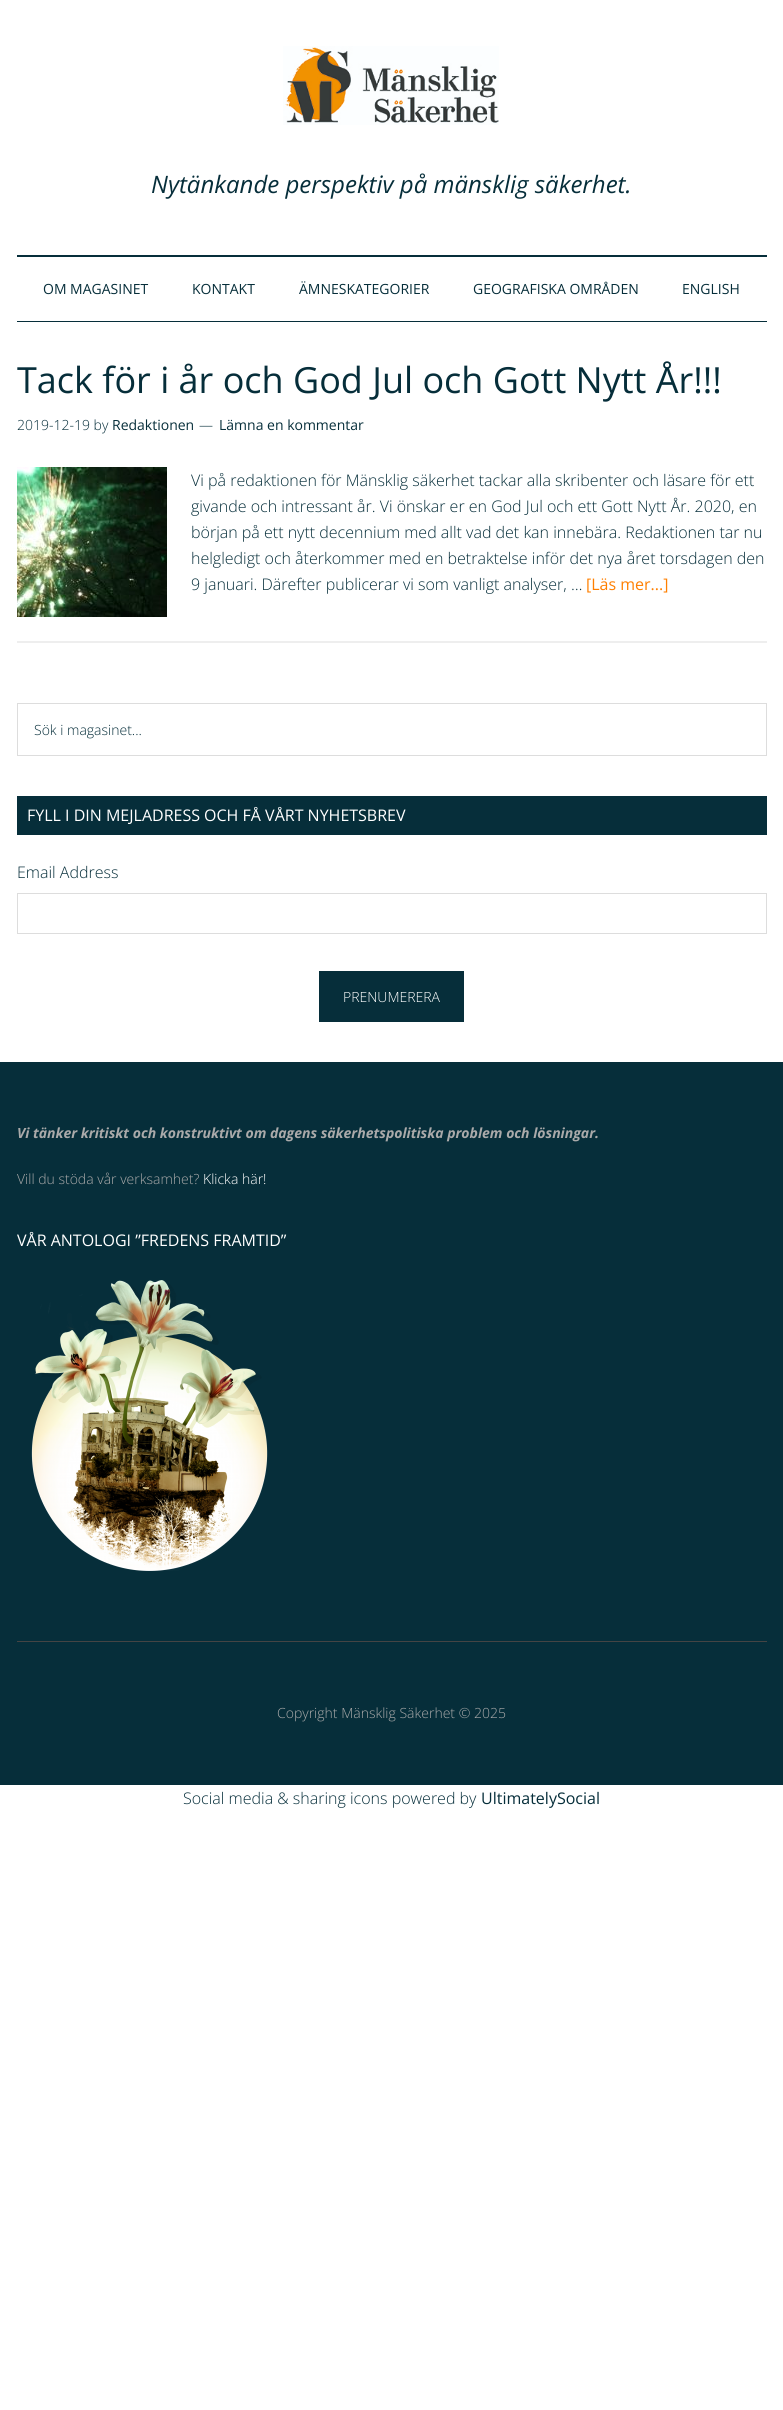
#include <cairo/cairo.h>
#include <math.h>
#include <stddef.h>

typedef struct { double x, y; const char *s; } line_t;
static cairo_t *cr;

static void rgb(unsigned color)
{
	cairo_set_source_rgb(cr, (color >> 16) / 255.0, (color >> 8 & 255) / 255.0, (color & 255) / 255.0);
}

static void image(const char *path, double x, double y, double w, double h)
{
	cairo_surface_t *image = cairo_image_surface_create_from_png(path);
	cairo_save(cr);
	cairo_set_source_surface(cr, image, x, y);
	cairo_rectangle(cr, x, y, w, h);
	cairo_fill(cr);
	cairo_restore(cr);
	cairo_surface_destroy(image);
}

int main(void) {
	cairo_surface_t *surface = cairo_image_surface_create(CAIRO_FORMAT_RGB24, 783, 2410);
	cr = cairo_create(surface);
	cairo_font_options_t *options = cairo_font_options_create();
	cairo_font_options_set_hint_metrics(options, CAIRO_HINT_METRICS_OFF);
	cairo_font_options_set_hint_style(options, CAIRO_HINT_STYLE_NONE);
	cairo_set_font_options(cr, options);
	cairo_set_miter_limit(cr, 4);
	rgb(0xffffff);
	cairo_paint(cr);
	rgb(0x062e3a);
	cairo_rectangle(cr, 17, 255, 750, 2);
	cairo_fill(cr);
	image("img/1.png", 283, 46, 216, 79);
	cairo_rectangle(cr, 17, 321, 750, 1);
	cairo_fill(cr);
	rgb(0xeeeeee);
	cairo_rectangle(cr, 17, 641, 750, 2);
	cairo_fill(cr);
	image("img/2.png", 17, 467, 150, 150);
	cairo_rectangle(cr, 17.5, 703.5, 749, 52);
	rgb(0xdddddd);
	cairo_set_line_width(cr, 1);
	cairo_stroke(cr);
	rgb(0x062e3a);
	cairo_rectangle(cr, 17, 796, 750, 39);
	cairo_fill(cr);
	cairo_rectangle(cr, 17.5, 893.5, 749, 40);
	rgb(0xdddddd);
	cairo_stroke(cr);
	rgb(0x062e3a);
	cairo_rectangle(cr, 319, 971, 145, 51);
	cairo_fill(cr);
	cairo_rectangle(cr, 0, 1062, 783, 723);
	cairo_fill(cr);
	image("img/3.png", 31, 1280, 237, 291);
	rgb(0x444444);
	cairo_rectangle(cr, 17, 1641, 750, 1);
	cairo_fill(cr);
	cairo_select_font_face(cr, "Open Sans", CAIRO_FONT_SLANT_ITALIC, CAIRO_FONT_WEIGHT_NORMAL);
	cairo_set_font_size(cr, 24);
	rgb(0x062e3a);
	cairo_move_to(cr, 151, 193);
	cairo_show_text(cr, "Nytänkande perspektiv på mänsklig säkerhet.");
	cairo_select_font_face(cr, "Open Sans", CAIRO_FONT_SLANT_NORMAL, CAIRO_FONT_WEIGHT_NORMAL);
	cairo_set_font_size(cr, 14);
	{
		static const line_t items[] = {
			{43, 294, "OM MAGASINET"},
			{192, 294, "KONTAKT"},
			{299, 294, "ÄMNESKATEGORIER"},
			{473, 294, "GEOGRAFISKA OMRÅDEN"},
			{682, 294, "ENGLISH"},
		};
		for (size_t i = 0; i < sizeof items / sizeof *items; i++) {
			cairo_move_to(cr, items[i].x, items[i].y);
			cairo_show_text(cr, items[i].s);
		}
	}
	cairo_set_font_size(cr, 36);
	cairo_move_to(cr, 17, 393);
	cairo_show_text(cr, "Tack för i år och God Jul och Gott Nytt År!!!");
	cairo_select_font_face(cr, "Open Sans Light", CAIRO_FONT_SLANT_NORMAL, CAIRO_FONT_WEIGHT_NORMAL);
	cairo_set_font_size(cr, 14);
	cairo_move_to(cr, 17, 430);
	cairo_show_text(cr, "2019-12-19 by");
	cairo_select_font_face(cr, "Open Sans", CAIRO_FONT_SLANT_NORMAL, CAIRO_FONT_WEIGHT_NORMAL);
	cairo_move_to(cr, 112, 430);
	cairo_show_text(cr, "Redaktionen");
	cairo_select_font_face(cr, "Open Sans Light", CAIRO_FONT_SLANT_NORMAL, CAIRO_FONT_WEIGHT_NORMAL);
	cairo_move_to(cr, 199, 430);
	cairo_show_text(cr, "—");
	cairo_select_font_face(cr, "Open Sans", CAIRO_FONT_SLANT_NORMAL, CAIRO_FONT_WEIGHT_NORMAL);
	cairo_move_to(cr, 219, 430);
	cairo_show_text(cr, "Lämna en kommentar");
	cairo_select_font_face(cr, "Open Sans Light", CAIRO_FONT_SLANT_NORMAL, CAIRO_FONT_WEIGHT_NORMAL);
	cairo_set_font_size(cr, 16);
	{
		static const line_t items[] = {
			{191, 486, "Vi på redaktionen för Mänsklig säkerhet tackar alla skribenter och läsare för ett"},
			{191, 512, "givande och intressant år. Vi önskar er en God Jul och ett Gott Nytt År. 2020, en"},
			{191, 538, "början på ett nytt decennium med allt vad det kan innebära. Redaktionen tar nu"},
			{191, 564, "helgledigt och återkommer med en betraktelse inför det nya året torsdagen den"},
			{191, 590, "9 januari. Därefter publicerar vi som vanligt analyser, …"},
		};
		for (size_t i = 0; i < sizeof items / sizeof *items; i++) {
			cairo_move_to(cr, items[i].x, items[i].y);
			cairo_show_text(cr, items[i].s);
		}
	}
	cairo_select_font_face(cr, "Open Sans", CAIRO_FONT_SLANT_NORMAL, CAIRO_FONT_WEIGHT_NORMAL);
	rgb(0xff7f00);
	cairo_move_to(cr, 586, 590);
	cairo_show_text(cr, "[Läs mer...]");
	cairo_select_font_face(cr, "Open Sans Light", CAIRO_FONT_SLANT_NORMAL, CAIRO_FONT_WEIGHT_NORMAL);
	cairo_set_font_size(cr, 14);
	rgb(0x062e3a);
	cairo_move_to(cr, 34, 735);
	cairo_show_text(cr, "Sök i magasinet...");
	cairo_select_font_face(cr, "Open Sans", CAIRO_FONT_SLANT_NORMAL, CAIRO_FONT_WEIGHT_NORMAL);
	cairo_set_font_size(cr, 16);
	rgb(0xffffff);
	cairo_move_to(cr, 27, 821);
	cairo_show_text(cr, "FYLL I DIN MEJLADRESS OCH FÅ VÅRT NYHETSBREV");
	cairo_select_font_face(cr, "Open Sans Light", CAIRO_FONT_SLANT_NORMAL, CAIRO_FONT_WEIGHT_NORMAL);
	rgb(0x062e3a);
	cairo_move_to(cr, 17, 878);
	cairo_show_text(cr, "Email Address");
	cairo_set_font_size(cr, 14);
	rgb(0xffffff);
	cairo_move_to(cr, 343, 1002);
	cairo_show_text(cr, "PRENUMERERA");
	cairo_select_font_face(cr, "Open Sans", CAIRO_FONT_SLANT_ITALIC, CAIRO_FONT_WEIGHT_BOLD);
	rgb(0xaaaaaa);
	cairo_move_to(cr, 17, 1138);
	cairo_show_text(cr, "Vi tänker kritiskt och konstruktivt om dagens säkerhetspolitiska problem och lösningar.");
	cairo_select_font_face(cr, "Open Sans Light", CAIRO_FONT_SLANT_NORMAL, CAIRO_FONT_WEIGHT_NORMAL);
	cairo_move_to(cr, 17, 1184);
	cairo_show_text(cr, "Vill du stöda vår verksamhet?");
	rgb(0xffffff);
	cairo_move_to(cr, 203, 1184);
	cairo_show_text(cr, "Klicka här!");
	cairo_select_font_face(cr, "Open Sans", CAIRO_FONT_SLANT_NORMAL, CAIRO_FONT_WEIGHT_NORMAL);
	cairo_set_font_size(cr, 16);
	cairo_move_to(cr, 17, 1246);
	cairo_show_text(cr, "VÅR ANTOLOGI ”FREDENS FRAMTID”");
	cairo_select_font_face(cr, "Open Sans Light", CAIRO_FONT_SLANT_NORMAL, CAIRO_FONT_WEIGHT_NORMAL);
	cairo_set_font_size(cr, 14);
	rgb(0xaaaaaa);
	cairo_move_to(cr, 277, 1718);
	cairo_show_text(cr, "Copyright Mänsklig Säkerhet © 2025");
	cairo_set_font_size(cr, 16);
	rgb(0x062e3a);
	cairo_move_to(cr, 183, 1804);
	cairo_show_text(cr, "Social media & sharing icons powered by");
	cairo_select_font_face(cr, "Open Sans", CAIRO_FONT_SLANT_NORMAL, CAIRO_FONT_WEIGHT_NORMAL);
	cairo_move_to(cr, 481, 1804);
	cairo_show_text(cr, "UltimatelySocial");
	cairo_surface_write_to_png(surface, "page.png");
	cairo_font_options_destroy(options);
	cairo_destroy(cr);
	cairo_surface_destroy(surface);
	return 0;
}
